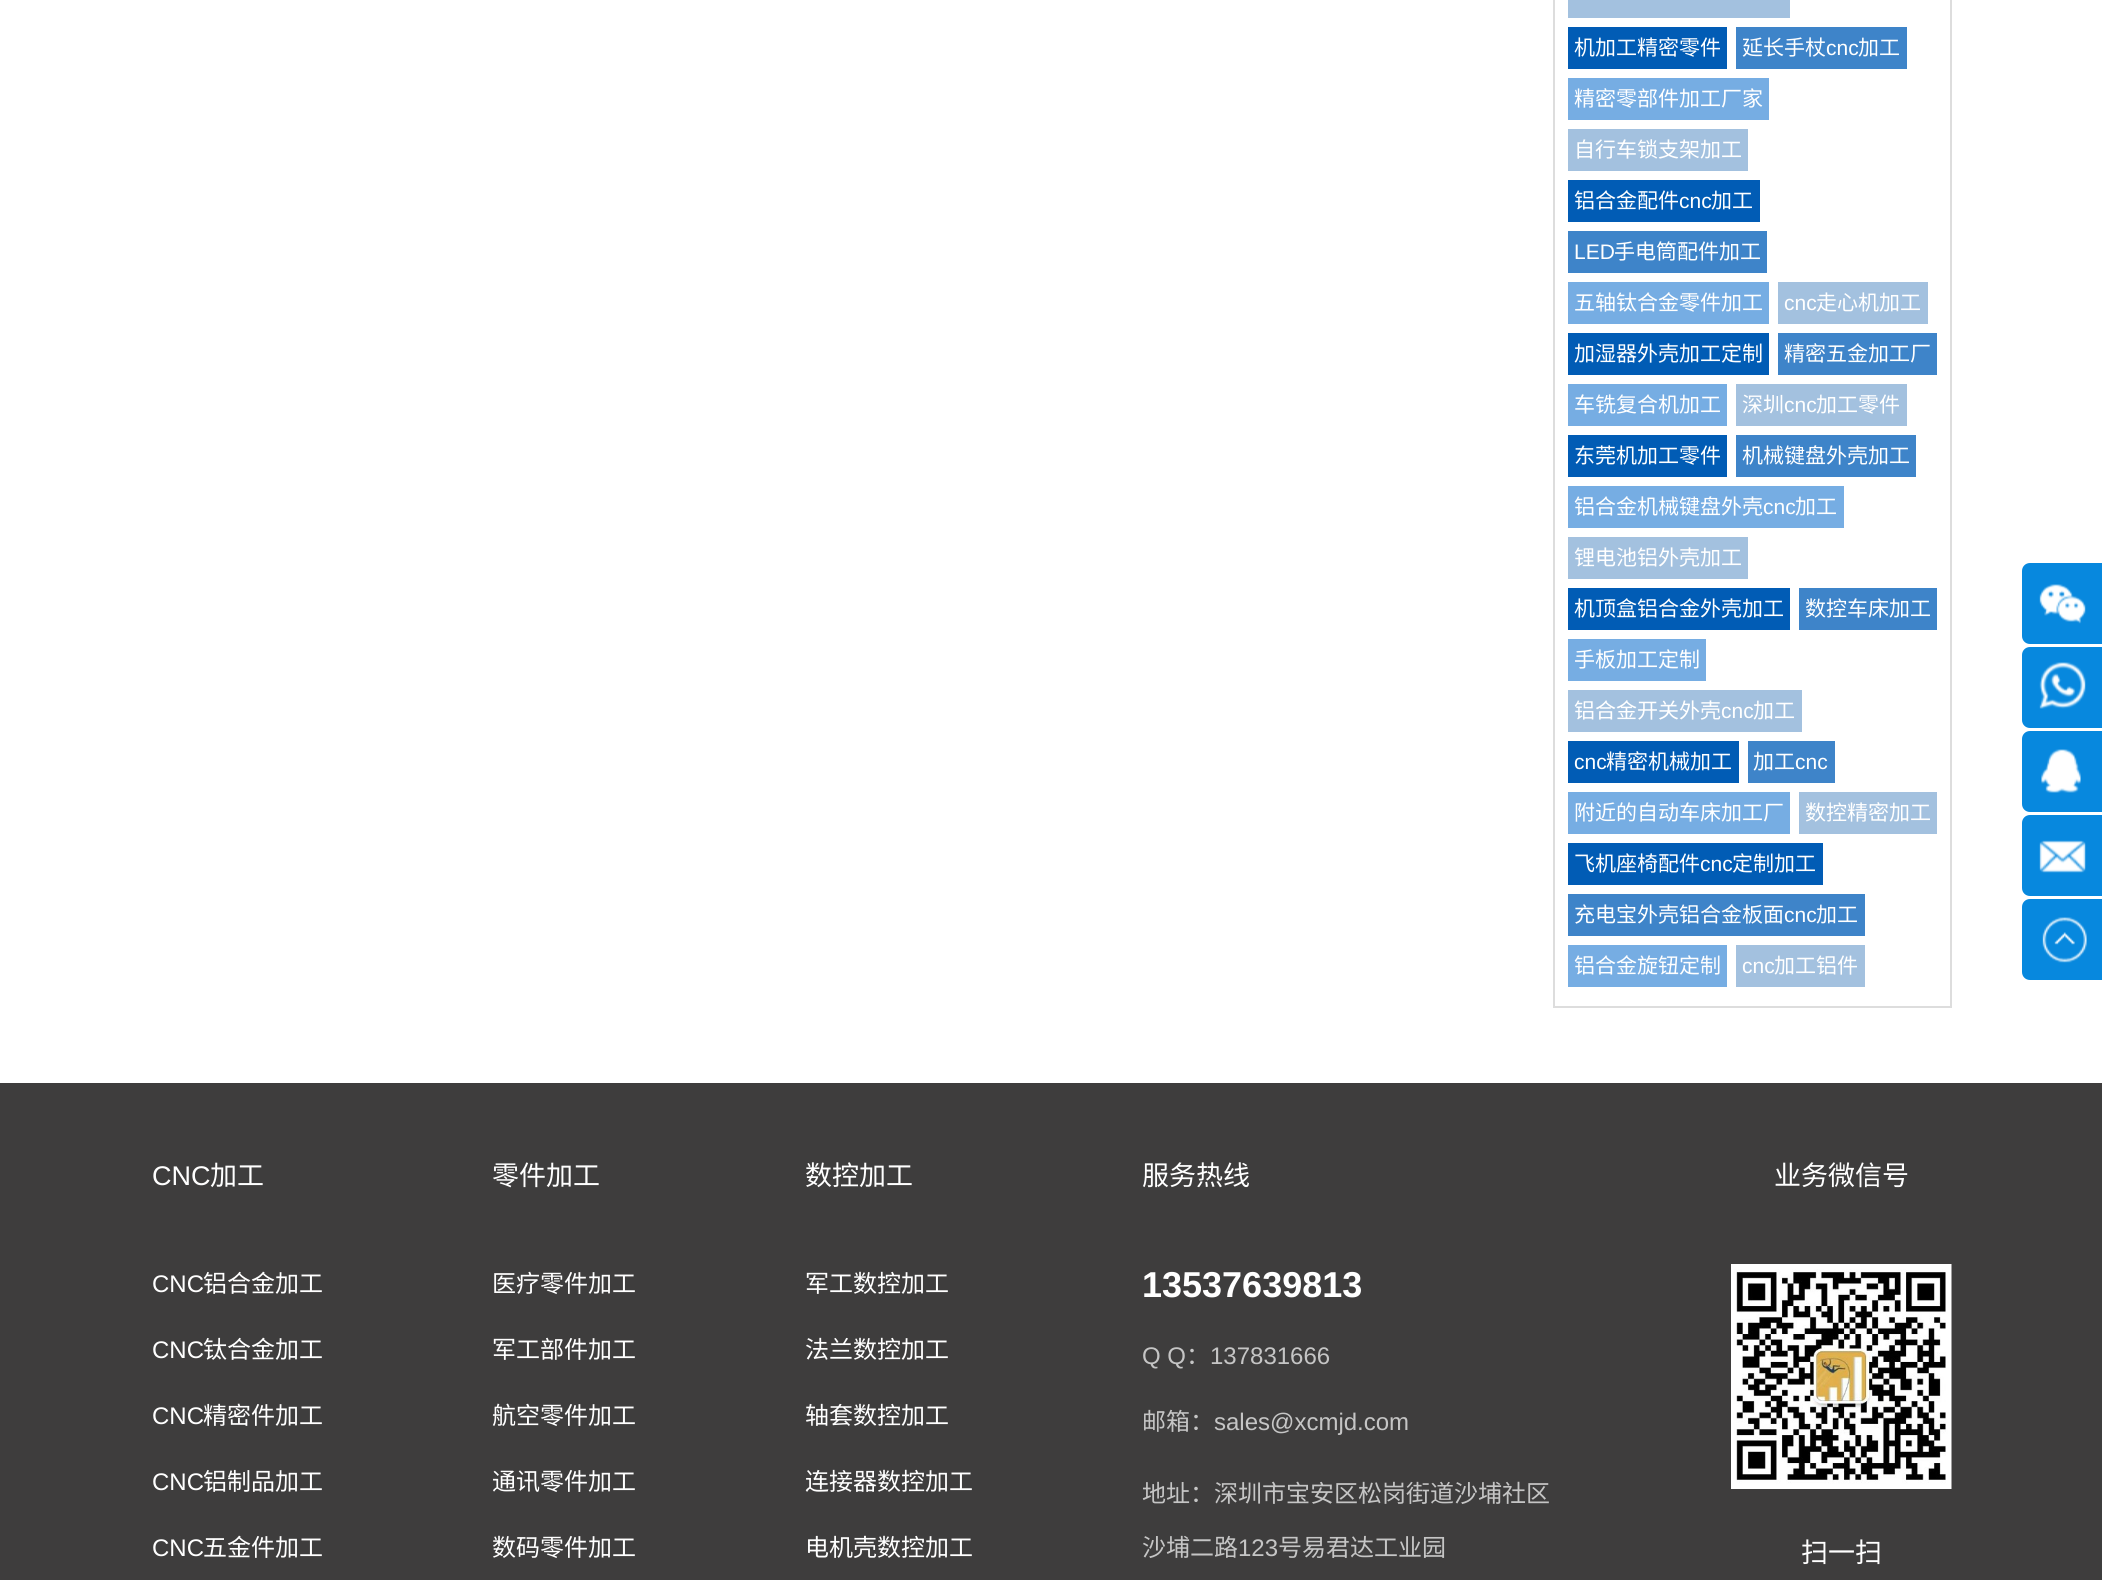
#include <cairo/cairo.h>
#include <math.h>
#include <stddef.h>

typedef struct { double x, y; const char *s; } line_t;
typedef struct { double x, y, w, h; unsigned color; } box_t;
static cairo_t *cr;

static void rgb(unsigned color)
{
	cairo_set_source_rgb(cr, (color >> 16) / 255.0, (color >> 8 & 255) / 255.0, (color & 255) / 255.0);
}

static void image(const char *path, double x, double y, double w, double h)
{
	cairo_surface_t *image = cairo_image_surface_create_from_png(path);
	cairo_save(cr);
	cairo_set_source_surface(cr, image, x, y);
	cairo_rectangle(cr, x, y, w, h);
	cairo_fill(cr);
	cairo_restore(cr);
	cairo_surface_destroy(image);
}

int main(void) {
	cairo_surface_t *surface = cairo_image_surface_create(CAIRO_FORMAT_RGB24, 2102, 1580);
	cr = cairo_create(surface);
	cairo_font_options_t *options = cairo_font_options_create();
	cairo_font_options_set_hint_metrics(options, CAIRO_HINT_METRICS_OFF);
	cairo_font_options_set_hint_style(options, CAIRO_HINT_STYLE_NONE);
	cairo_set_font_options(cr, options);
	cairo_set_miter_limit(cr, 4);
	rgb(0xffffff);
	cairo_paint(cr);
	cairo_rectangle(cr, 1554, -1, 397, 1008);
	rgb(0xdddddd);
	cairo_stroke(cr);
	{
		static const box_t items[] = {
			{1568, 0, 222, 18, 0xa3c1df},
			{1568, 27, 159, 42, 0x015cb5},
			{1736, 27, 171, 42, 0x3e84c9},
			{1568, 78, 201, 42, 0x76ade3},
			{1568, 129, 180, 42, 0xa3c1df},
			{1568, 180, 192, 42, 0x015cb5},
			{1568, 231, 199, 42, 0x3e84c9},
			{1568, 282, 201, 42, 0x76ade3},
			{1778, 282, 150, 42, 0xa3c1df},
			{1568, 333, 201, 42, 0x015cb5},
			{1778, 333, 159, 42, 0x3e84c9},
			{1568, 384, 159, 42, 0x76ade3},
			{1736, 384, 171, 42, 0xa3c1df},
			{1568, 435, 159, 42, 0x015cb5},
			{1736, 435, 180, 42, 0x3e84c9},
			{1568, 486, 276, 42, 0x76ade3},
			{1568, 537, 180, 42, 0xa3c1df},
			{1568, 588, 222, 42, 0x015cb5},
			{1799, 588, 138, 42, 0x3e84c9},
			{1568, 639, 138, 42, 0x76ade3},
			{1568, 690, 234, 42, 0xa3c1df},
			{1568, 741, 171, 42, 0x015cb5},
			{1748, 741, 87, 42, 0x3e84c9},
			{1568, 792, 222, 42, 0x76ade3},
			{1799, 792, 138, 42, 0xa3c1df},
			{1568, 843, 255, 42, 0x015cb5},
			{1568, 894, 297, 42, 0x3e84c9},
			{1568, 945, 159, 42, 0x76ade3},
			{1736, 945, 129, 42, 0xa3c1df},
		};
		for (size_t i = 0; i < sizeof items / sizeof *items; i++) {
			rgb(items[i].color);
			cairo_rectangle(cr, items[i].x, items[i].y, items[i].w, items[i].h);
			cairo_fill(cr);
		}
	}
	rgb(0x0788de);
	cairo_new_path(cr);
	cairo_move_to(cr, 2030, 563);
	cairo_line_to(cr, 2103, 563);
	cairo_line_to(cr, 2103, 644);
	cairo_line_to(cr, 2030, 644);
	cairo_curve_to(cr, 2025.5, 644, 2022, 640.5, 2022, 636);
	cairo_line_to(cr, 2022, 571);
	cairo_curve_to(cr, 2022, 566.5, 2025.5, 563, 2030, 563);
	cairo_close_path(cr);
	cairo_fill(cr);
	image("img/1.png", 2039, 584, 47, 40);
	cairo_new_path(cr);
	cairo_move_to(cr, 2030, 647);
	cairo_line_to(cr, 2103, 647);
	cairo_line_to(cr, 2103, 728);
	cairo_line_to(cr, 2030, 728);
	cairo_curve_to(cr, 2025.5, 728, 2022, 724.5, 2022, 720);
	cairo_line_to(cr, 2022, 655);
	cairo_curve_to(cr, 2022, 650.5, 2025.5, 647, 2030, 647);
	cairo_close_path(cr);
	cairo_fill(cr);
	image("img/2.png", 2039, 662, 47, 47);
	cairo_new_path(cr);
	cairo_move_to(cr, 2030, 731);
	cairo_line_to(cr, 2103, 731);
	cairo_line_to(cr, 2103, 812);
	cairo_line_to(cr, 2030, 812);
	cairo_curve_to(cr, 2025.5, 812, 2022, 808.5, 2022, 804);
	cairo_line_to(cr, 2022, 739);
	cairo_curve_to(cr, 2022, 734.5, 2025.5, 731, 2030, 731);
	cairo_close_path(cr);
	cairo_fill(cr);
	image("img/3.png", 2041, 749, 40, 44);
	cairo_new_path(cr);
	cairo_move_to(cr, 2030, 815);
	cairo_line_to(cr, 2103, 815);
	cairo_line_to(cr, 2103, 896);
	cairo_line_to(cr, 2030, 896);
	cairo_curve_to(cr, 2025.5, 896, 2022, 892.5, 2022, 888);
	cairo_line_to(cr, 2022, 823);
	cairo_curve_to(cr, 2022, 818.5, 2025.5, 815, 2030, 815);
	cairo_close_path(cr);
	cairo_fill(cr);
	image("img/4.png", 2039, 840, 47, 33);
	cairo_new_path(cr);
	cairo_move_to(cr, 2030, 899);
	cairo_line_to(cr, 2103, 899);
	cairo_line_to(cr, 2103, 980);
	cairo_line_to(cr, 2030, 980);
	cairo_curve_to(cr, 2025.5, 980, 2022, 976.5, 2022, 972);
	cairo_line_to(cr, 2022, 907);
	cairo_curve_to(cr, 2022, 902.5, 2025.5, 899, 2030, 899);
	cairo_close_path(cr);
	cairo_fill(cr);
	image("img/5.png", 2042, 917, 45, 46);
	rgb(0x3e3d3d);
	cairo_rectangle(cr, 0, 1083, 2102, 497);
	cairo_fill(cr);
	image("img/6.png", 1731, 1264, 221, 225);
	cairo_select_font_face(cr, "Noto Sans CJK SC", CAIRO_FONT_SLANT_NORMAL, CAIRO_FONT_WEIGHT_NORMAL);
	cairo_set_font_size(cr, 21);
	rgb(0xffffff);
	cairo_move_to(cr, 1574, 55);
	cairo_show_text(cr, "机加工精密零件");
	cairo_move_to(cr, 1742, 55);
	cairo_show_text(cr, "延长手杖");
	cairo_select_font_face(cr, "Liberation Sans", CAIRO_FONT_SLANT_NORMAL, CAIRO_FONT_WEIGHT_NORMAL);
	cairo_move_to(cr, 1826, 55);
	cairo_show_text(cr, "cnc");
	cairo_select_font_face(cr, "Noto Sans CJK SC", CAIRO_FONT_SLANT_NORMAL, CAIRO_FONT_WEIGHT_NORMAL);
	{
		static const line_t items[] = {
			{1858, 55, "加工"},
			{1574, 106, "精密零部件加工厂家"},
			{1574, 157, "自行车锁支架加工"},
			{1574, 208, "铝合金配件"},
		};
		for (size_t i = 0; i < sizeof items / sizeof *items; i++) {
			cairo_move_to(cr, items[i].x, items[i].y);
			cairo_show_text(cr, items[i].s);
		}
	}
	cairo_select_font_face(cr, "Liberation Sans", CAIRO_FONT_SLANT_NORMAL, CAIRO_FONT_WEIGHT_NORMAL);
	cairo_move_to(cr, 1679, 208);
	cairo_show_text(cr, "cnc");
	cairo_select_font_face(cr, "Noto Sans CJK SC", CAIRO_FONT_SLANT_NORMAL, CAIRO_FONT_WEIGHT_NORMAL);
	cairo_move_to(cr, 1711, 208);
	cairo_show_text(cr, "加工");
	cairo_select_font_face(cr, "Liberation Sans", CAIRO_FONT_SLANT_NORMAL, CAIRO_FONT_WEIGHT_NORMAL);
	cairo_move_to(cr, 1574, 259);
	cairo_show_text(cr, "LED");
	cairo_select_font_face(cr, "Noto Sans CJK SC", CAIRO_FONT_SLANT_NORMAL, CAIRO_FONT_WEIGHT_NORMAL);
	cairo_move_to(cr, 1614, 259);
	cairo_show_text(cr, "手电筒配件加工");
	cairo_move_to(cr, 1574, 310);
	cairo_show_text(cr, "五轴钛合金零件加工");
	cairo_select_font_face(cr, "Liberation Sans", CAIRO_FONT_SLANT_NORMAL, CAIRO_FONT_WEIGHT_NORMAL);
	cairo_move_to(cr, 1784, 310);
	cairo_show_text(cr, "cnc");
	cairo_select_font_face(cr, "Noto Sans CJK SC", CAIRO_FONT_SLANT_NORMAL, CAIRO_FONT_WEIGHT_NORMAL);
	{
		static const line_t items[] = {
			{1816, 310, "走心机加工"},
			{1574, 361, "加湿器外壳加工定制"},
			{1784, 361, "精密五金加工厂"},
			{1574, 412, "车铣复合机加工"},
			{1742, 412, "深圳"},
		};
		for (size_t i = 0; i < sizeof items / sizeof *items; i++) {
			cairo_move_to(cr, items[i].x, items[i].y);
			cairo_show_text(cr, items[i].s);
		}
	}
	cairo_select_font_face(cr, "Liberation Sans", CAIRO_FONT_SLANT_NORMAL, CAIRO_FONT_WEIGHT_NORMAL);
	cairo_move_to(cr, 1784, 412);
	cairo_show_text(cr, "cnc");
	cairo_select_font_face(cr, "Noto Sans CJK SC", CAIRO_FONT_SLANT_NORMAL, CAIRO_FONT_WEIGHT_NORMAL);
	{
		static const line_t items[] = {
			{1816, 412, "加工零件"},
			{1574, 463, "东莞机加工零件"},
			{1742, 463, "机械键盘外壳加工"},
			{1574, 514, "铝合金机械键盘外壳"},
		};
		for (size_t i = 0; i < sizeof items / sizeof *items; i++) {
			cairo_move_to(cr, items[i].x, items[i].y);
			cairo_show_text(cr, items[i].s);
		}
	}
	cairo_select_font_face(cr, "Liberation Sans", CAIRO_FONT_SLANT_NORMAL, CAIRO_FONT_WEIGHT_NORMAL);
	cairo_move_to(cr, 1763, 514);
	cairo_show_text(cr, "cnc");
	cairo_select_font_face(cr, "Noto Sans CJK SC", CAIRO_FONT_SLANT_NORMAL, CAIRO_FONT_WEIGHT_NORMAL);
	{
		static const line_t items[] = {
			{1795, 514, "加工"},
			{1574, 565, "锂电池铝外壳加工"},
			{1574, 616, "机顶盒铝合金外壳加工"},
			{1805, 616, "数控车床加工"},
			{1574, 667, "手板加工定制"},
			{1574, 718, "铝合金开关外壳"},
		};
		for (size_t i = 0; i < sizeof items / sizeof *items; i++) {
			cairo_move_to(cr, items[i].x, items[i].y);
			cairo_show_text(cr, items[i].s);
		}
	}
	cairo_select_font_face(cr, "Liberation Sans", CAIRO_FONT_SLANT_NORMAL, CAIRO_FONT_WEIGHT_NORMAL);
	cairo_move_to(cr, 1721, 718);
	cairo_show_text(cr, "cnc");
	cairo_select_font_face(cr, "Noto Sans CJK SC", CAIRO_FONT_SLANT_NORMAL, CAIRO_FONT_WEIGHT_NORMAL);
	cairo_move_to(cr, 1753, 718);
	cairo_show_text(cr, "加工");
	cairo_select_font_face(cr, "Liberation Sans", CAIRO_FONT_SLANT_NORMAL, CAIRO_FONT_WEIGHT_NORMAL);
	cairo_move_to(cr, 1574, 769);
	cairo_show_text(cr, "cnc");
	cairo_select_font_face(cr, "Noto Sans CJK SC", CAIRO_FONT_SLANT_NORMAL, CAIRO_FONT_WEIGHT_NORMAL);
	cairo_move_to(cr, 1606, 769);
	cairo_show_text(cr, "精密机械加工");
	cairo_move_to(cr, 1753, 769);
	cairo_show_text(cr, "加工");
	cairo_select_font_face(cr, "Liberation Sans", CAIRO_FONT_SLANT_NORMAL, CAIRO_FONT_WEIGHT_NORMAL);
	cairo_move_to(cr, 1795, 769);
	cairo_show_text(cr, "cnc");
	cairo_select_font_face(cr, "Noto Sans CJK SC", CAIRO_FONT_SLANT_NORMAL, CAIRO_FONT_WEIGHT_NORMAL);
	{
		static const line_t items[] = {
			{1574, 820, "附近的自动车床加工厂"},
			{1805, 820, "数控精密加工"},
			{1574, 871, "飞机座椅配件"},
		};
		for (size_t i = 0; i < sizeof items / sizeof *items; i++) {
			cairo_move_to(cr, items[i].x, items[i].y);
			cairo_show_text(cr, items[i].s);
		}
	}
	cairo_select_font_face(cr, "Liberation Sans", CAIRO_FONT_SLANT_NORMAL, CAIRO_FONT_WEIGHT_NORMAL);
	cairo_move_to(cr, 1700, 871);
	cairo_show_text(cr, "cnc");
	cairo_select_font_face(cr, "Noto Sans CJK SC", CAIRO_FONT_SLANT_NORMAL, CAIRO_FONT_WEIGHT_NORMAL);
	cairo_move_to(cr, 1732, 871);
	cairo_show_text(cr, "定制加工");
	cairo_move_to(cr, 1574, 922);
	cairo_show_text(cr, "充电宝外壳铝合金板面");
	cairo_select_font_face(cr, "Liberation Sans", CAIRO_FONT_SLANT_NORMAL, CAIRO_FONT_WEIGHT_NORMAL);
	cairo_move_to(cr, 1784, 922);
	cairo_show_text(cr, "cnc");
	cairo_select_font_face(cr, "Noto Sans CJK SC", CAIRO_FONT_SLANT_NORMAL, CAIRO_FONT_WEIGHT_NORMAL);
	cairo_move_to(cr, 1816, 922);
	cairo_show_text(cr, "加工");
	cairo_move_to(cr, 1574, 973);
	cairo_show_text(cr, "铝合金旋钮定制");
	cairo_select_font_face(cr, "Liberation Sans", CAIRO_FONT_SLANT_NORMAL, CAIRO_FONT_WEIGHT_NORMAL);
	cairo_move_to(cr, 1742, 973);
	cairo_show_text(cr, "cnc");
	cairo_select_font_face(cr, "Noto Sans CJK SC", CAIRO_FONT_SLANT_NORMAL, CAIRO_FONT_WEIGHT_NORMAL);
	cairo_move_to(cr, 1774, 973);
	cairo_show_text(cr, "加工铝件");
	cairo_select_font_face(cr, "Liberation Sans", CAIRO_FONT_SLANT_NORMAL, CAIRO_FONT_WEIGHT_NORMAL);
	cairo_set_font_size(cr, 27);
	cairo_move_to(cr, 152, 1185);
	cairo_show_text(cr, "CNC");
	cairo_select_font_face(cr, "Noto Sans CJK SC", CAIRO_FONT_SLANT_NORMAL, CAIRO_FONT_WEIGHT_NORMAL);
	cairo_move_to(cr, 210, 1185);
	cairo_show_text(cr, "加工");
	cairo_select_font_face(cr, "Liberation Sans", CAIRO_FONT_SLANT_NORMAL, CAIRO_FONT_WEIGHT_NORMAL);
	cairo_set_font_size(cr, 24);
	cairo_move_to(cr, 152, 1292);
	cairo_show_text(cr, "CNC");
	cairo_select_font_face(cr, "Noto Sans CJK SC", CAIRO_FONT_SLANT_NORMAL, CAIRO_FONT_WEIGHT_NORMAL);
	cairo_move_to(cr, 203, 1292);
	cairo_show_text(cr, "铝合金加工");
	cairo_select_font_face(cr, "Liberation Sans", CAIRO_FONT_SLANT_NORMAL, CAIRO_FONT_WEIGHT_NORMAL);
	cairo_move_to(cr, 152, 1358);
	cairo_show_text(cr, "CNC");
	cairo_select_font_face(cr, "Noto Sans CJK SC", CAIRO_FONT_SLANT_NORMAL, CAIRO_FONT_WEIGHT_NORMAL);
	cairo_move_to(cr, 203, 1358);
	cairo_show_text(cr, "钛合金加工");
	cairo_select_font_face(cr, "Liberation Sans", CAIRO_FONT_SLANT_NORMAL, CAIRO_FONT_WEIGHT_NORMAL);
	cairo_move_to(cr, 152, 1424);
	cairo_show_text(cr, "CNC");
	cairo_select_font_face(cr, "Noto Sans CJK SC", CAIRO_FONT_SLANT_NORMAL, CAIRO_FONT_WEIGHT_NORMAL);
	cairo_move_to(cr, 203, 1424);
	cairo_show_text(cr, "精密件加工");
	cairo_select_font_face(cr, "Liberation Sans", CAIRO_FONT_SLANT_NORMAL, CAIRO_FONT_WEIGHT_NORMAL);
	cairo_move_to(cr, 152, 1490);
	cairo_show_text(cr, "CNC");
	cairo_select_font_face(cr, "Noto Sans CJK SC", CAIRO_FONT_SLANT_NORMAL, CAIRO_FONT_WEIGHT_NORMAL);
	cairo_move_to(cr, 203, 1490);
	cairo_show_text(cr, "铝制品加工");
	cairo_select_font_face(cr, "Liberation Sans", CAIRO_FONT_SLANT_NORMAL, CAIRO_FONT_WEIGHT_NORMAL);
	cairo_move_to(cr, 152, 1556);
	cairo_show_text(cr, "CNC");
	cairo_select_font_face(cr, "Noto Sans CJK SC", CAIRO_FONT_SLANT_NORMAL, CAIRO_FONT_WEIGHT_NORMAL);
	cairo_move_to(cr, 203, 1556);
	cairo_show_text(cr, "五金件加工");
	cairo_set_font_size(cr, 27);
	cairo_move_to(cr, 492, 1185);
	cairo_show_text(cr, "零件加工");
	cairo_set_font_size(cr, 24);
	{
		static const line_t items[] = {
			{492, 1292, "医疗零件加工"},
			{492, 1358, "军工部件加工"},
			{492, 1424, "航空零件加工"},
			{492, 1490, "通讯零件加工"},
			{492, 1556, "数码零件加工"},
		};
		for (size_t i = 0; i < sizeof items / sizeof *items; i++) {
			cairo_move_to(cr, items[i].x, items[i].y);
			cairo_show_text(cr, items[i].s);
		}
	}
	cairo_set_font_size(cr, 27);
	cairo_move_to(cr, 805, 1185);
	cairo_show_text(cr, "数控加工");
	cairo_set_font_size(cr, 24);
	{
		static const line_t items[] = {
			{805, 1292, "军工数控加工"},
			{805, 1358, "法兰数控加工"},
			{805, 1424, "轴套数控加工"},
			{805, 1490, "连接器数控加工"},
			{805, 1556, "电机壳数控加工"},
		};
		for (size_t i = 0; i < sizeof items / sizeof *items; i++) {
			cairo_move_to(cr, items[i].x, items[i].y);
			cairo_show_text(cr, items[i].s);
		}
	}
	cairo_set_font_size(cr, 27);
	cairo_move_to(cr, 1142, 1185);
	cairo_show_text(cr, "服务热线");
	cairo_select_font_face(cr, "Liberation Sans", CAIRO_FONT_SLANT_NORMAL, CAIRO_FONT_WEIGHT_BOLD);
	cairo_set_font_size(cr, 36);
	cairo_move_to(cr, 1142, 1297);
	cairo_show_text(cr, "13537639813");
	cairo_select_font_face(cr, "Liberation Sans", CAIRO_FONT_SLANT_NORMAL, CAIRO_FONT_WEIGHT_NORMAL);
	cairo_set_font_size(cr, 24);
	rgb(0xc5c5c5);
	cairo_move_to(cr, 1142, 1364);
	cairo_show_text(cr, "Q Q");
	cairo_select_font_face(cr, "Noto Sans CJK SC", CAIRO_FONT_SLANT_NORMAL, CAIRO_FONT_WEIGHT_NORMAL);
	cairo_move_to(cr, 1186, 1364);
	cairo_show_text(cr, "：");
	cairo_select_font_face(cr, "Liberation Sans", CAIRO_FONT_SLANT_NORMAL, CAIRO_FONT_WEIGHT_NORMAL);
	cairo_move_to(cr, 1210, 1364);
	cairo_show_text(cr, "137831666");
	cairo_select_font_face(cr, "Noto Sans CJK SC", CAIRO_FONT_SLANT_NORMAL, CAIRO_FONT_WEIGHT_NORMAL);
	cairo_move_to(cr, 1142, 1430);
	cairo_show_text(cr, "邮箱：");
	cairo_select_font_face(cr, "Liberation Sans", CAIRO_FONT_SLANT_NORMAL, CAIRO_FONT_WEIGHT_NORMAL);
	cairo_move_to(cr, 1214, 1430);
	cairo_show_text(cr, "sales@xcmjd.com");
	cairo_select_font_face(cr, "Noto Sans CJK SC", CAIRO_FONT_SLANT_NORMAL, CAIRO_FONT_WEIGHT_NORMAL);
	cairo_move_to(cr, 1142, 1502);
	cairo_show_text(cr, "地址：深圳市宝安区松岗街道沙埔社区");
	cairo_move_to(cr, 1142, 1556);
	cairo_show_text(cr, "沙埔二路");
	cairo_select_font_face(cr, "Liberation Sans", CAIRO_FONT_SLANT_NORMAL, CAIRO_FONT_WEIGHT_NORMAL);
	cairo_move_to(cr, 1238, 1556);
	cairo_show_text(cr, "123");
	cairo_select_font_face(cr, "Noto Sans CJK SC", CAIRO_FONT_SLANT_NORMAL, CAIRO_FONT_WEIGHT_NORMAL);
	cairo_move_to(cr, 1278, 1556);
	cairo_show_text(cr, "号易君达工业园");
	cairo_set_font_size(cr, 27);
	rgb(0xffffff);
	cairo_move_to(cr, 1774, 1185);
	cairo_show_text(cr, "业务微信号");
	cairo_move_to(cr, 1801, 1562);
	cairo_show_text(cr, "扫一扫");
	cairo_surface_write_to_png(surface, "page.png");
	cairo_font_options_destroy(options);
	cairo_destroy(cr);
	cairo_surface_destroy(surface);
	return 0;
}
